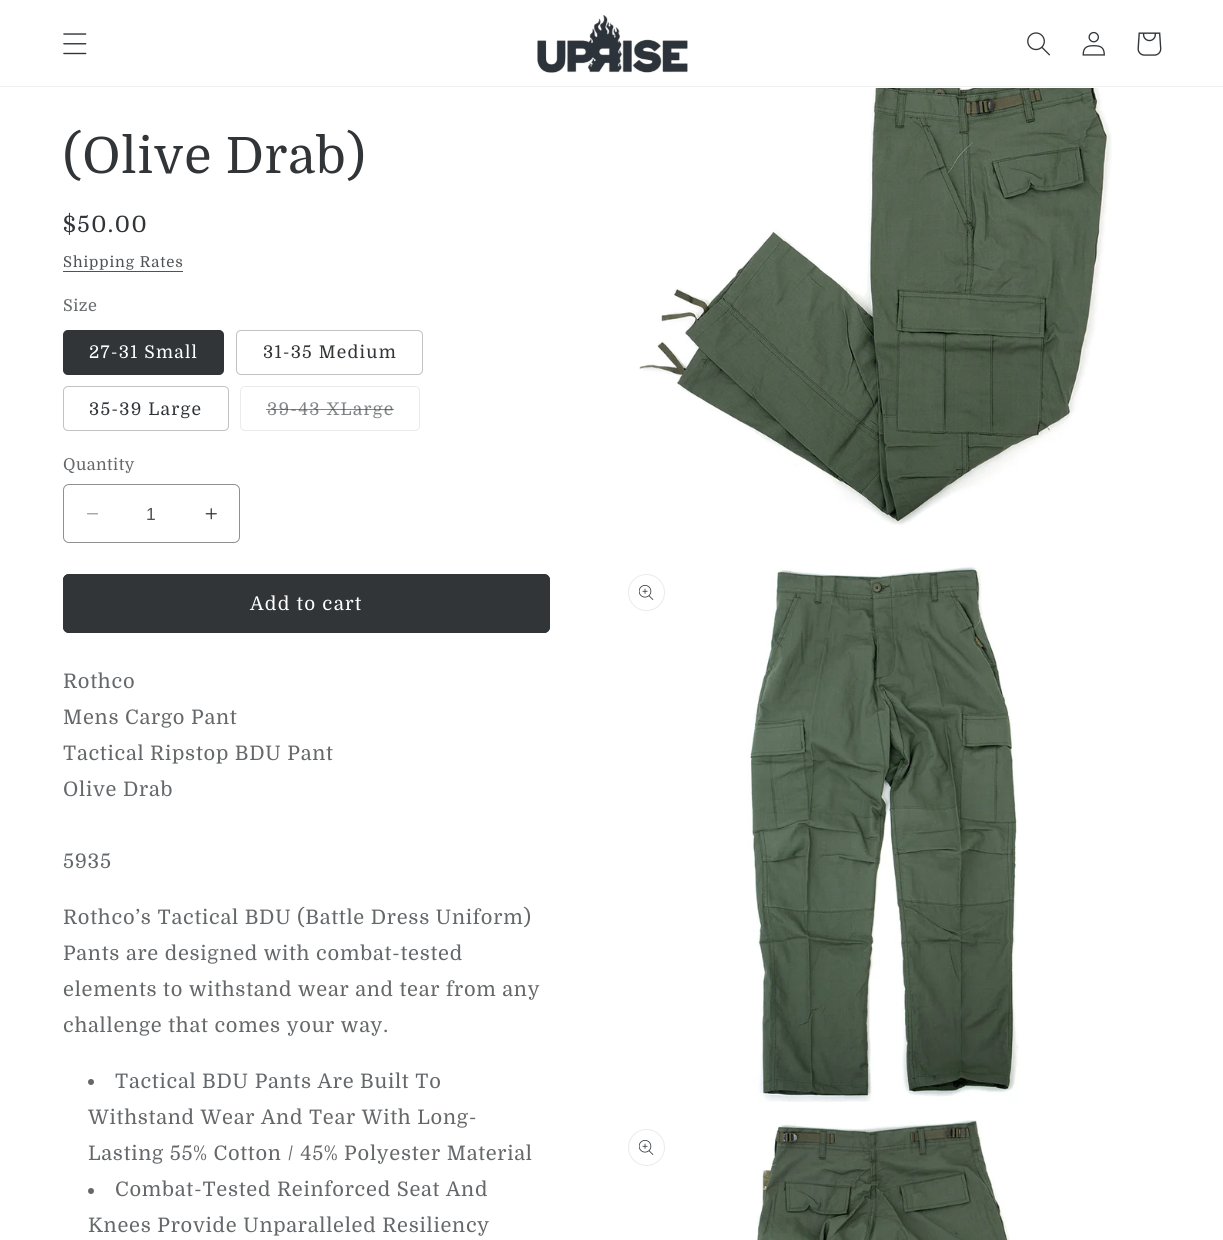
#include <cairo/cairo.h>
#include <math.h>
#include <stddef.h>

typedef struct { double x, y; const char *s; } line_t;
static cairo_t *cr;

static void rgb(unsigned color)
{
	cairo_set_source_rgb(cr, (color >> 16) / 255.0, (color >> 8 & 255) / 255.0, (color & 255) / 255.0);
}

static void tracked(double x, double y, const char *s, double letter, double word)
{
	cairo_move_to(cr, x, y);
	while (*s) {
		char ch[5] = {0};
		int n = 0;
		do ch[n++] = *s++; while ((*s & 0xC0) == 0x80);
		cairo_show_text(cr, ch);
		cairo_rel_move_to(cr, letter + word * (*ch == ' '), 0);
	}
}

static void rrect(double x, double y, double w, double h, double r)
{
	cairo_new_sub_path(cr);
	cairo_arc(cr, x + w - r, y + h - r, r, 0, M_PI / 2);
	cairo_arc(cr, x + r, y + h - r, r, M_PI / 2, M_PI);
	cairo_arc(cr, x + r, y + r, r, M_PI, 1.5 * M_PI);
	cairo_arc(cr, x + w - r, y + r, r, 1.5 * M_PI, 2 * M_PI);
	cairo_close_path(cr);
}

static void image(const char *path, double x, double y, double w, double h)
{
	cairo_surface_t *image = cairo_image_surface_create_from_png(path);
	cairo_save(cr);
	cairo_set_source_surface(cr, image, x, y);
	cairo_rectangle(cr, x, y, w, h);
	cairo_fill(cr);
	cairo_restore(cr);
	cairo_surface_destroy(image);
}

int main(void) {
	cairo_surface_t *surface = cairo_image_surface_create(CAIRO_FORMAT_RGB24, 1223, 1240);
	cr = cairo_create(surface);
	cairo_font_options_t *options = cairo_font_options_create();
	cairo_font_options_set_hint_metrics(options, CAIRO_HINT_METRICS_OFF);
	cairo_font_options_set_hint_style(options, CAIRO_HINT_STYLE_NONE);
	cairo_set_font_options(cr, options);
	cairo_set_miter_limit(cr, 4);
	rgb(0xffffff);
	cairo_paint(cr);
	rgb(0xefefef);
	cairo_rectangle(cr, 0, 86, 1223, 1);
	cairo_fill(cr);
	image("img/1.png", 63, 33, 24, 22);
	image("img/2.png", 537, 15, 151, 58);
	image("img/3.png", 1027, 32, 23, 24);
	image("img/4.png", 1082, 31, 23, 25);
	image("img/5.png", 1137, 32, 25, 24);
	rgb(0x505356);
	cairo_rectangle(cr, 63, 271, 120, 1);
	cairo_fill(cr);
	rgb(0x313538);
	rrect(63, 330, 161, 45, 5);
	cairo_fill(cr);
	rrect(63.5, 330.5, 160, 44, 4.5);
	cairo_set_source_rgba(cr, 0.192, 0.208, 0.22, 0.3);
	cairo_set_line_width(cr, 1);
	cairo_stroke(cr);
	rrect(236.5, 330.5, 186, 44, 4.5);
	rgb(0xc1c2c3);
	cairo_stroke(cr);
	rrect(63.5, 386.5, 165, 44, 4.5);
	cairo_stroke(cr);
	rrect(240.5, 386.5, 179, 44, 4.5);
	rgb(0xeaebeb);
	cairo_stroke(cr);
	image("img/6.png", 87, 513, 11, 2);
	image("img/7.png", 205, 508, 12, 12);
	rrect(63.5, 484.5, 176, 58, 5.5);
	rgb(0x8e9092);
	cairo_stroke(cr);
	rgb(0x313538);
	rrect(63, 574, 487, 59, 6);
	cairo_fill(cr);
	rrect(63.5, 574.5, 486, 58, 5.5);
	cairo_stroke(cr);
	rgb(0x65686a);
	cairo_arc(cr, 91, 1082, 3, 0, 2 * M_PI);
	cairo_fill(cr);
	cairo_arc(cr, 91, 1191, 3, 0, 2 * M_PI);
	cairo_fill(cr);
	image("img/8.png", 638, 88, 474, 437);
	cairo_arc(cr, 646.5, 592.5, 18, 0, 2 * M_PI);
	rgb(0xeaebeb);
	cairo_stroke(cr);
	image("img/9.png", 639, 585, 15, 15);
	image("img/10.png", 748, 566, 271, 536);
	cairo_arc(cr, 646.5, 1147.5, 18, 0, 2 * M_PI);
	cairo_stroke(cr);
	image("img/9.png", 639, 1140, 15, 15);
	image("img/11.png", 757, 1120, 253, 120);
	cairo_select_font_face(cr, "Domine", CAIRO_FONT_SLANT_NORMAL, CAIRO_FONT_WEIGHT_NORMAL);
	cairo_set_font_size(cr, 50);
	rgb(0x313538);
	tracked(63, 173, "(Olive Drab)", 0.75, 0);
	cairo_set_font_size(cr, 22.5);
	tracked(63, 232, "$50.00", 1.5, 0);
	cairo_set_font_size(cr, 15);
	rgb(0x505356);
	tracked(63, 267, "Shipping Rates", 0.9, 0);
	cairo_set_font_size(cr, 16.25);
	rgb(0x65686a);
	tracked(63, 311, "Size", 0.5, 0);
	cairo_set_font_size(cr, 17.5);
	rgb(0xffffff);
	tracked(89, 358, "27-31 Small", 1.25, 0);
	rgb(0x313538);
	tracked(263, 358, "31-35 Medium", 1.25, 0);
	tracked(89, 415, "35-39 Large", 1.25, 0);
	rgb(0x838688);
	tracked(267, 415, "39-43 XLarge", 1.25, 0);
	cairo_set_source_rgba(cr, 0.192, 0.208, 0.22, 0.6);
	cairo_rectangle(cr, 266, 409, 128, 1);
	cairo_fill(cr);
	cairo_set_font_size(cr, 16.25);
	rgb(0x65686a);
	tracked(63, 470, "Quantity", 0.5, 0);
	cairo_select_font_face(cr, "Liberation Sans", CAIRO_FONT_SLANT_NORMAL, CAIRO_FONT_WEIGHT_NORMAL);
	cairo_set_font_size(cr, 17.5);
	rgb(0x505356);
	cairo_move_to(cr, 146, 520);
	cairo_show_text(cr, "1");
	cairo_select_font_face(cr, "Domine", CAIRO_FONT_SLANT_NORMAL, CAIRO_FONT_WEIGHT_NORMAL);
	cairo_set_font_size(cr, 18.75);
	rgb(0xffffff);
	tracked(250, 610, "Add to cart", 1.25, 0);
	cairo_set_font_size(cr, 20);
	rgb(0x65686a);
	{
		static const line_t items[] = {
			{63, 688, "Rothco"},
			{63, 724, "Mens Cargo Pant"},
			{63, 760, "Tactical Ripstop BDU Pant"},
			{63, 796, "Olive Drab"},
			{63, 868, "5935"},
			{63, 924, "Rothco’s Tactical BDU (Battle Dress Uniform)"},
			{63, 960, "Pants are designed with combat-tested"},
			{63, 996, "elements to withstand wear and tear from any"},
			{63, 1032, "challenge that comes your way."},
			{115, 1088, "Tactical BDU Pants Are Built To"},
			{88, 1124, "Withstand Wear And Tear With Long-"},
			{88, 1160, "Lasting 55% Cotton / 45% Polyester Material"},
			{115, 1196, "Combat-Tested Reinforced Seat And"},
			{88, 1232, "Knees Provide Unparalleled Resiliency"},
		};
		for (size_t i = 0; i < sizeof items / sizeof *items; i++) {
			tracked(items[i].x, items[i].y, items[i].s, 0.75, 0);
		}
	}
	cairo_surface_write_to_png(surface, "page.png");
	cairo_font_options_destroy(options);
	cairo_destroy(cr);
	cairo_surface_destroy(surface);
	return 0;
}
